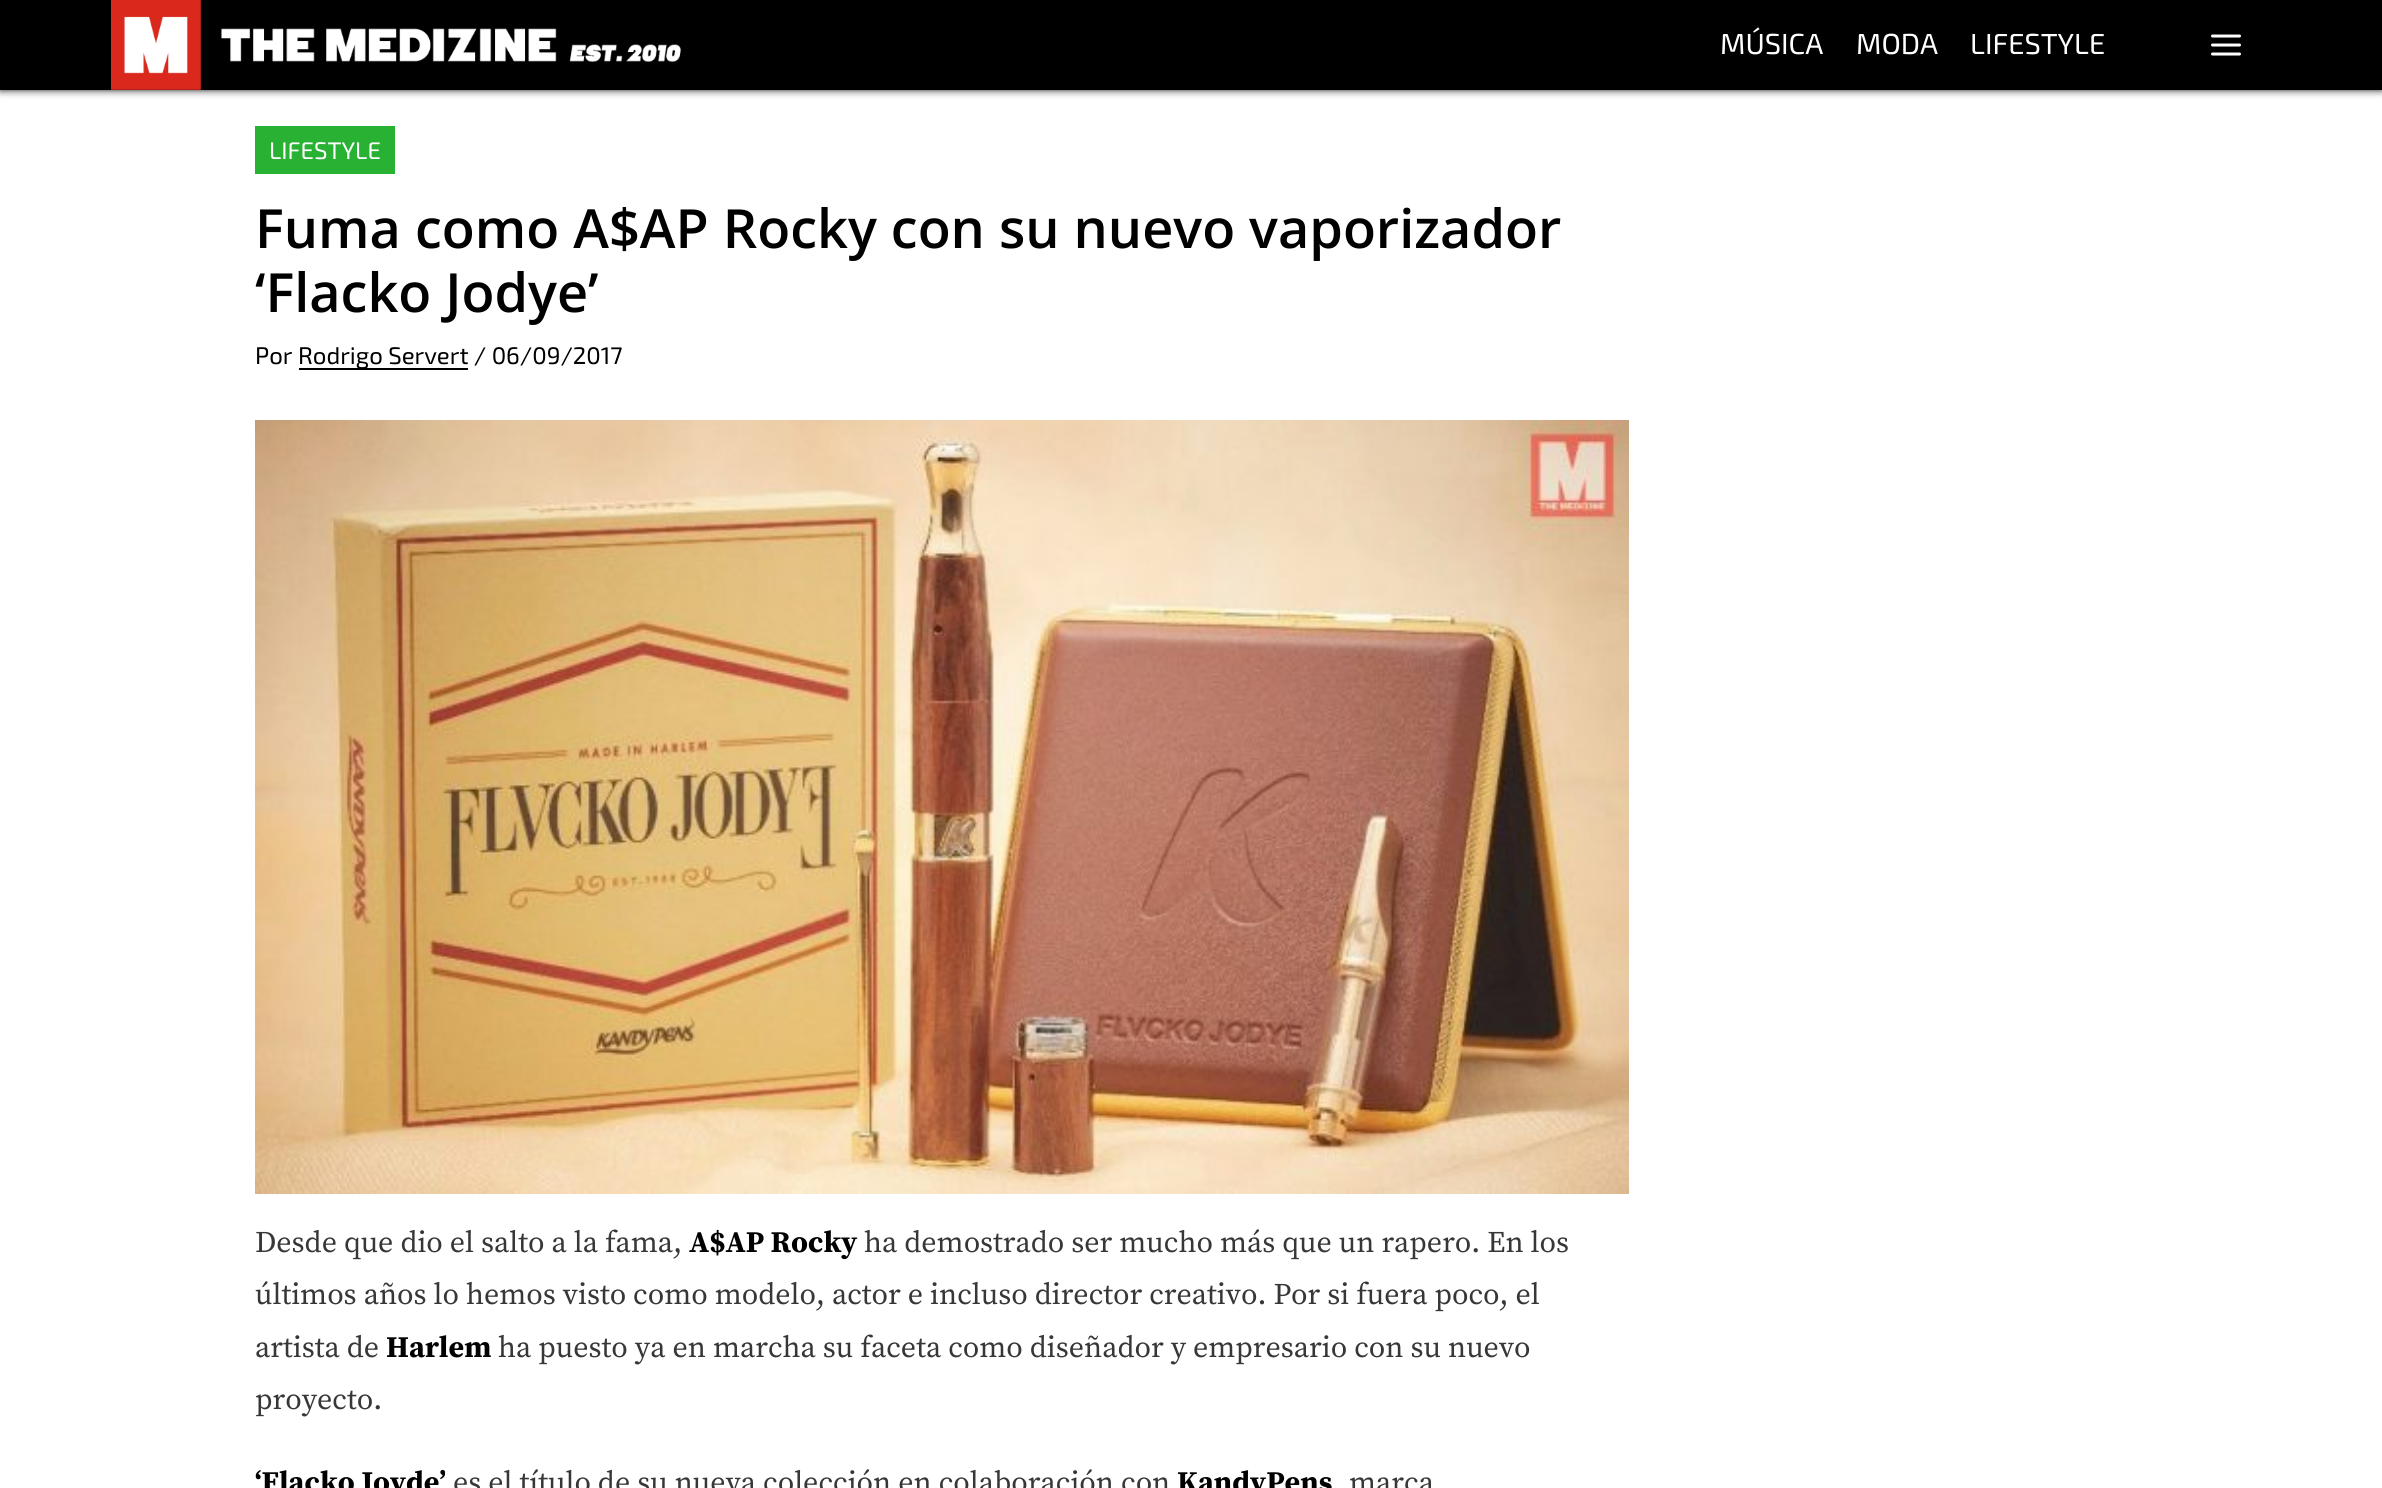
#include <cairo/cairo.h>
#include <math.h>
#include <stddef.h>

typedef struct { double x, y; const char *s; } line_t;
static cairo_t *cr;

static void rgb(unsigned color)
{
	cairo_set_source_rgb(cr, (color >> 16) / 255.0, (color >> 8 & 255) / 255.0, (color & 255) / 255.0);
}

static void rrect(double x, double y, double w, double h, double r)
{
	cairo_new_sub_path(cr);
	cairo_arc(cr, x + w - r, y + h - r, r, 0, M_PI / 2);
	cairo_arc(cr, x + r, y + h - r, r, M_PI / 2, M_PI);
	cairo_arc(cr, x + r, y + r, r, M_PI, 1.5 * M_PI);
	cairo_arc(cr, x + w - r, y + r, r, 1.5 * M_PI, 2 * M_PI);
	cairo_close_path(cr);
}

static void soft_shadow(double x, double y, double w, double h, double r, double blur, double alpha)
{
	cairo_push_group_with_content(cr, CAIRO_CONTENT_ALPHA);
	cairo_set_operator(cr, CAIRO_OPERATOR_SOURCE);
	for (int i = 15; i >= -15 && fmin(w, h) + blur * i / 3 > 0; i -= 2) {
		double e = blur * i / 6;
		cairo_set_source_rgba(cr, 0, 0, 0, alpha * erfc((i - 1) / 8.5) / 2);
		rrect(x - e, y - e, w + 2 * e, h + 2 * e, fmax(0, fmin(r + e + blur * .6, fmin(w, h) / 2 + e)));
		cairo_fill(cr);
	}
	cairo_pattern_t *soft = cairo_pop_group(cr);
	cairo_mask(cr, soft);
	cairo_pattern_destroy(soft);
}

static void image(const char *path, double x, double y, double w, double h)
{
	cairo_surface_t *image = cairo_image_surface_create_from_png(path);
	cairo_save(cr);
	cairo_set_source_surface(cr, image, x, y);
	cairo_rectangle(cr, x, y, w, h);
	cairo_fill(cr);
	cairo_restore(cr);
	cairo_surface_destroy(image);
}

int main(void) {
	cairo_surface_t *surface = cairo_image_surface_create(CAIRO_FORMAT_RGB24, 2382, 1488);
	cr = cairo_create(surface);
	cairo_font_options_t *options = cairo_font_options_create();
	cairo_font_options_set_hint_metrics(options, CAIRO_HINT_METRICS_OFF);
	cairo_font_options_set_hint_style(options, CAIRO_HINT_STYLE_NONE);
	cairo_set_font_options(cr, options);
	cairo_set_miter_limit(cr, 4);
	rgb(0xffffff);
	cairo_paint(cr);
	rgb(0x000000);
	soft_shadow(0, 0, 2382, 90, 0, 4, 0.9);
	rgb(0x000000);
	cairo_rectangle(cr, 0, 0, 2382, 90);
	cairo_fill(cr);
	image("img/1.png", 111, 0, 570, 90);
	cairo_new_path(cr);
	cairo_move_to(cr, 2212.5, 45);
	cairo_line_to(cr, 2239.5, 45);
	cairo_move_to(cr, 2212.5, 36);
	cairo_line_to(cr, 2239.5, 36);
	cairo_move_to(cr, 2212.5, 54);
	cairo_line_to(cr, 2239.5, 54);
	rgb(0xffffff);
	cairo_set_line_width(cr, 3);
	cairo_set_line_cap(cr, CAIRO_LINE_CAP_ROUND);
	cairo_set_line_join(cr, CAIRO_LINE_JOIN_ROUND);
	cairo_stroke(cr);
	rgb(0x28b133);
	cairo_rectangle(cr, 255, 126, 140, 48);
	cairo_fill(cr);
	rgb(0x000000);
	cairo_rectangle(cr, 299, 368, 169, 2);
	cairo_fill(cr);
	image("img/2.png", 255, 420, 1374, 774);
	cairo_select_font_face(cr, "Exo 2", CAIRO_FONT_SLANT_NORMAL, CAIRO_FONT_WEIGHT_NORMAL);
	cairo_set_font_size(cr, 29);
	rgb(0xffffff);
	{
		static const line_t items[] = {
			{1720, 54, "MÚSICA"},
			{1856, 54, "MODA"},
			{1970, 54, "LIFESTYLE"},
		};
		for (size_t i = 0; i < sizeof items / sizeof *items; i++) {
			cairo_move_to(cr, items[i].x, items[i].y);
			cairo_show_text(cr, items[i].s);
		}
	}
	cairo_set_font_size(cr, 24);
	cairo_move_to(cr, 269, 159);
	cairo_show_text(cr, "LIFESTYLE");
	cairo_select_font_face(cr, "Open Sans SemiBold", CAIRO_FONT_SLANT_NORMAL, CAIRO_FONT_WEIGHT_NORMAL);
	cairo_set_font_size(cr, 54);
	rgb(0x000000);
	cairo_move_to(cr, 255, 248);
	cairo_show_text(cr, "Fuma como A$AP Rocky con su nuevo vaporizador");
	cairo_move_to(cr, 255, 312);
	cairo_show_text(cr, "‘Flacko Jodye’");
	cairo_select_font_face(cr, "Exo 2", CAIRO_FONT_SLANT_NORMAL, CAIRO_FONT_WEIGHT_NORMAL);
	cairo_set_font_size(cr, 24);
	cairo_move_to(cr, 255, 364);
	cairo_show_text(cr, "Por");
	cairo_move_to(cr, 298, 364);
	cairo_show_text(cr, "Rodrigo Servert / 06/09/2017");
	cairo_select_font_face(cr, "Source Serif Pro", CAIRO_FONT_SLANT_NORMAL, CAIRO_FONT_WEIGHT_NORMAL);
	cairo_set_font_size(cr, 30);
	rgb(0x373737);
	cairo_move_to(cr, 255, 1252);
	cairo_show_text(cr, "Desde que dio el salto a la fama,");
	cairo_select_font_face(cr, "Source Serif Pro", CAIRO_FONT_SLANT_NORMAL, CAIRO_FONT_WEIGHT_BOLD);
	rgb(0x000000);
	cairo_move_to(cr, 689, 1252);
	cairo_show_text(cr, "A$AP Rocky");
	cairo_select_font_face(cr, "Source Serif Pro", CAIRO_FONT_SLANT_NORMAL, CAIRO_FONT_WEIGHT_NORMAL);
	rgb(0x373737);
	{
		static const line_t items[] = {
			{864, 1252, "ha demostrado ser mucho más que un rapero. En los"},
			{255, 1304, "últimos años lo hemos visto como modelo, actor e incluso director creativo. Por si fuera poco, el"},
			{255, 1357, "artista de"},
		};
		for (size_t i = 0; i < sizeof items / sizeof *items; i++) {
			cairo_move_to(cr, items[i].x, items[i].y);
			cairo_show_text(cr, items[i].s);
		}
	}
	cairo_select_font_face(cr, "Source Serif Pro", CAIRO_FONT_SLANT_NORMAL, CAIRO_FONT_WEIGHT_BOLD);
	rgb(0x000000);
	cairo_move_to(cr, 386, 1357);
	cairo_show_text(cr, "Harlem");
	cairo_select_font_face(cr, "Source Serif Pro", CAIRO_FONT_SLANT_NORMAL, CAIRO_FONT_WEIGHT_NORMAL);
	rgb(0x373737);
	cairo_move_to(cr, 498, 1357);
	cairo_show_text(cr, "ha puesto ya en marcha su faceta como diseñador y empresario con su nuevo");
	cairo_move_to(cr, 255, 1409);
	cairo_show_text(cr, "proyecto.");
	cairo_select_font_face(cr, "Source Serif Pro", CAIRO_FONT_SLANT_NORMAL, CAIRO_FONT_WEIGHT_BOLD);
	rgb(0x000000);
	cairo_move_to(cr, 255, 1492);
	cairo_show_text(cr, "‘Flacko Joyde’");
	cairo_select_font_face(cr, "Source Serif Pro", CAIRO_FONT_SLANT_NORMAL, CAIRO_FONT_WEIGHT_NORMAL);
	rgb(0x373737);
	cairo_move_to(cr, 453, 1492);
	cairo_show_text(cr, "es el título de su nueva colección en colaboración con");
	cairo_select_font_face(cr, "Source Serif Pro", CAIRO_FONT_SLANT_NORMAL, CAIRO_FONT_WEIGHT_BOLD);
	rgb(0x000000);
	cairo_move_to(cr, 1177, 1492);
	cairo_show_text(cr, "KandyPens");
	cairo_select_font_face(cr, "Source Serif Pro", CAIRO_FONT_SLANT_NORMAL, CAIRO_FONT_WEIGHT_NORMAL);
	rgb(0x373737);
	cairo_move_to(cr, 1349, 1492);
	cairo_show_text(cr, "marca");
	cairo_surface_write_to_png(surface, "page.png");
	cairo_font_options_destroy(options);
	cairo_destroy(cr);
	cairo_surface_destroy(surface);
	return 0;
}
